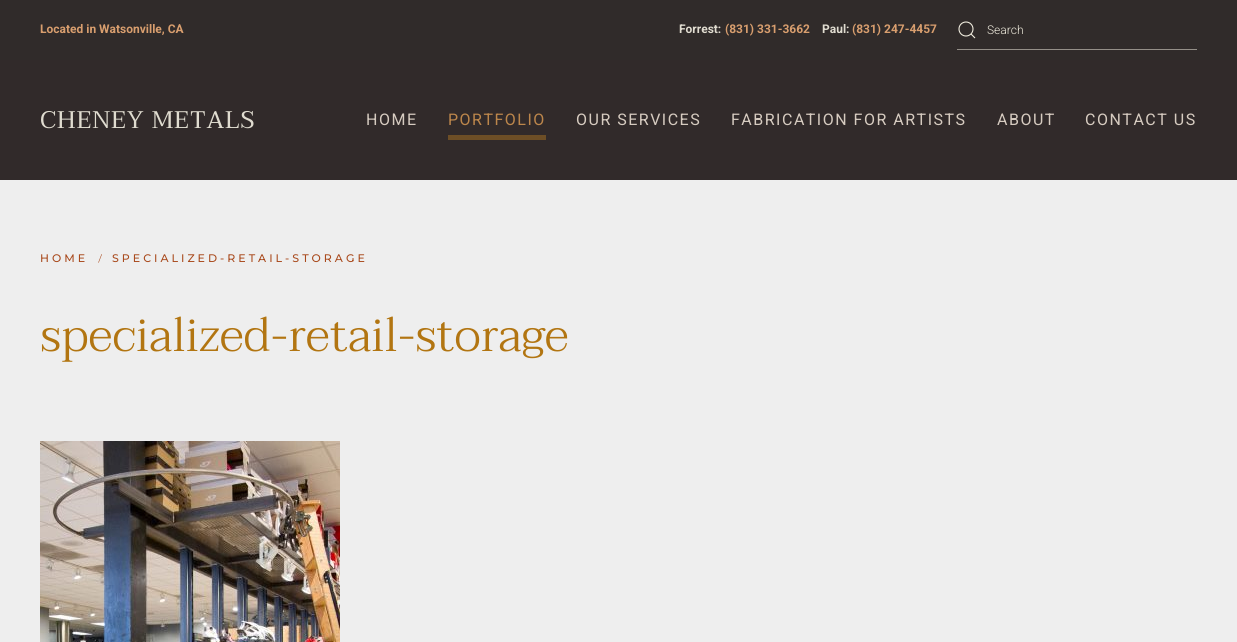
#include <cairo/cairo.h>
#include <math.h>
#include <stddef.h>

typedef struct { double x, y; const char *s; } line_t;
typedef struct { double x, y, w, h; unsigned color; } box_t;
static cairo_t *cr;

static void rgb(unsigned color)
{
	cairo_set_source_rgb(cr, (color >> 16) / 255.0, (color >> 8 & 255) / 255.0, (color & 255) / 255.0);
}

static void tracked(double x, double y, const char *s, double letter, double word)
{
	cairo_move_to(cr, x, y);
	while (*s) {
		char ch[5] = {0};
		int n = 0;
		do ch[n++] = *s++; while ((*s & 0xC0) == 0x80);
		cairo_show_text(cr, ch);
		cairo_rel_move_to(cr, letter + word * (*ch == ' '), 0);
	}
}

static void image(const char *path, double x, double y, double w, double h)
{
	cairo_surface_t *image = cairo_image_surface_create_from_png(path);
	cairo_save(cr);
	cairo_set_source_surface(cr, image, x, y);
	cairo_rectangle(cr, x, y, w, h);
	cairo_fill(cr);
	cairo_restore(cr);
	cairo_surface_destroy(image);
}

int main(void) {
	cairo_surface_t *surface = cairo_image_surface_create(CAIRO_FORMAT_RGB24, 1237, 642);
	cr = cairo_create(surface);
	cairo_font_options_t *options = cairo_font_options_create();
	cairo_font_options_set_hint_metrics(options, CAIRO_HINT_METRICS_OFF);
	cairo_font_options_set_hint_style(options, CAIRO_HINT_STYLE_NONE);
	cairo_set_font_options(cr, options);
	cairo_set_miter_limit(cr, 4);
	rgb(0xeeeeee);
	cairo_paint(cr);
	rgb(0x302b2a);
	cairo_rectangle(cr, 0, 0, 1237, 60);
	cairo_fill(cr);
	cairo_arc(cr, 966, 29, 7, 0, 2 * M_PI);
	rgb(0xf0ecde);
	cairo_set_line_width(cr, 1.1);
	cairo_stroke(cr);
	cairo_new_path(cr);
	cairo_move_to(cr, 971, 34);
	cairo_line_to(cr, 975, 38);
	cairo_close_path(cr);
	cairo_set_source_rgba(cr, 0.957, 0.941, 0.886, 0.98);
	cairo_stroke(cr);
	{
		static const box_t items[] = {
			{957, 49, 240, 1, 0x948f88},
			{0, 60, 1237, 120, 0x312a2a},
			{448, 135, 98, 5, 0x6d4e26},
		};
		for (size_t i = 0; i < sizeof items / sizeof *items; i++) {
			rgb(items[i].color);
			cairo_rectangle(cr, items[i].x, items[i].y, items[i].w, items[i].h);
			cairo_fill(cr);
		}
	}
	image("img/1.png", 40, 441, 300, 201);
	cairo_select_font_face(cr, "Roboto", CAIRO_FONT_SLANT_NORMAL, CAIRO_FONT_WEIGHT_BOLD);
	cairo_set_font_size(cr, 12);
	rgb(0xd89e6e);
	cairo_move_to(cr, 40, 33);
	cairo_show_text(cr, "Located in Watsonville, CA");
	rgb(0xe0dcd0);
	cairo_move_to(cr, 679, 33);
	cairo_show_text(cr, "Forrest:");
	rgb(0xd89e6e);
	cairo_move_to(cr, 725, 33);
	cairo_show_text(cr, "(831) 331-3662");
	rgb(0xe0dcd0);
	cairo_move_to(cr, 822, 33);
	cairo_show_text(cr, "Paul:");
	rgb(0xd89e6e);
	cairo_move_to(cr, 852, 33);
	cairo_show_text(cr, "(831) 247-4457");
	cairo_select_font_face(cr, "Roboto Light", CAIRO_FONT_SLANT_NORMAL, CAIRO_FONT_WEIGHT_NORMAL);
	rgb(0xf0ecde);
	cairo_move_to(cr, 987, 34);
	cairo_show_text(cr, "Search");
	cairo_select_font_face(cr, "Taviraj", CAIRO_FONT_SLANT_NORMAL, CAIRO_FONT_WEIGHT_NORMAL);
	cairo_set_font_size(cr, 24);
	rgb(0xe0dcd0);
	tracked(40, 128, "CHENEY METALS", 1, 0);
	cairo_select_font_face(cr, "Roboto", CAIRO_FONT_SLANT_NORMAL, CAIRO_FONT_WEIGHT_NORMAL);
	cairo_set_font_size(cr, 16);
	rgb(0xd6cbc0);
	tracked(366, 125, "HOME", 1.5, 0);
	rgb(0xbc864b);
	tracked(448, 125, "PORTFOLIO", 1.5, 0);
	rgb(0xd6cbc0);
	{
		static const line_t items[] = {
			{576, 125, "OUR SERVICES"},
			{731, 125, "FABRICATION FOR ARTISTS"},
			{997, 125, "ABOUT"},
			{1085, 125, "CONTACT US"},
		};
		for (size_t i = 0; i < sizeof items / sizeof *items; i++) {
			tracked(items[i].x, items[i].y, items[i].s, 1.5, 0);
		}
	}
	cairo_select_font_face(cr, "Montserrat Thin", CAIRO_FONT_SLANT_NORMAL, CAIRO_FONT_WEIGHT_NORMAL);
	cairo_set_font_size(cr, 11);
	rgb(0xa94a1d);
	tracked(40, 262, "HOME", 3, 0);
	cairo_select_font_face(cr, "Roboto Light", CAIRO_FONT_SLANT_NORMAL, CAIRO_FONT_WEIGHT_NORMAL);
	cairo_move_to(cr, 98, 262);
	cairo_show_text(cr, "/");
	cairo_select_font_face(cr, "Montserrat Thin", CAIRO_FONT_SLANT_NORMAL, CAIRO_FONT_WEIGHT_NORMAL);
	tracked(112, 262, "SPECIALIZED-RETAIL-STORAGE", 3, 0);
	cairo_select_font_face(cr, "Taviraj Light", CAIRO_FONT_SLANT_NORMAL, CAIRO_FONT_WEIGHT_NORMAL);
	cairo_set_font_size(cr, 48);
	rgb(0xb27511);
	cairo_move_to(cr, 40, 351);
	cairo_show_text(cr, "specialized-retail-storage");
	cairo_surface_write_to_png(surface, "page.png");
	cairo_font_options_destroy(options);
	cairo_destroy(cr);
	cairo_surface_destroy(surface);
	return 0;
}
